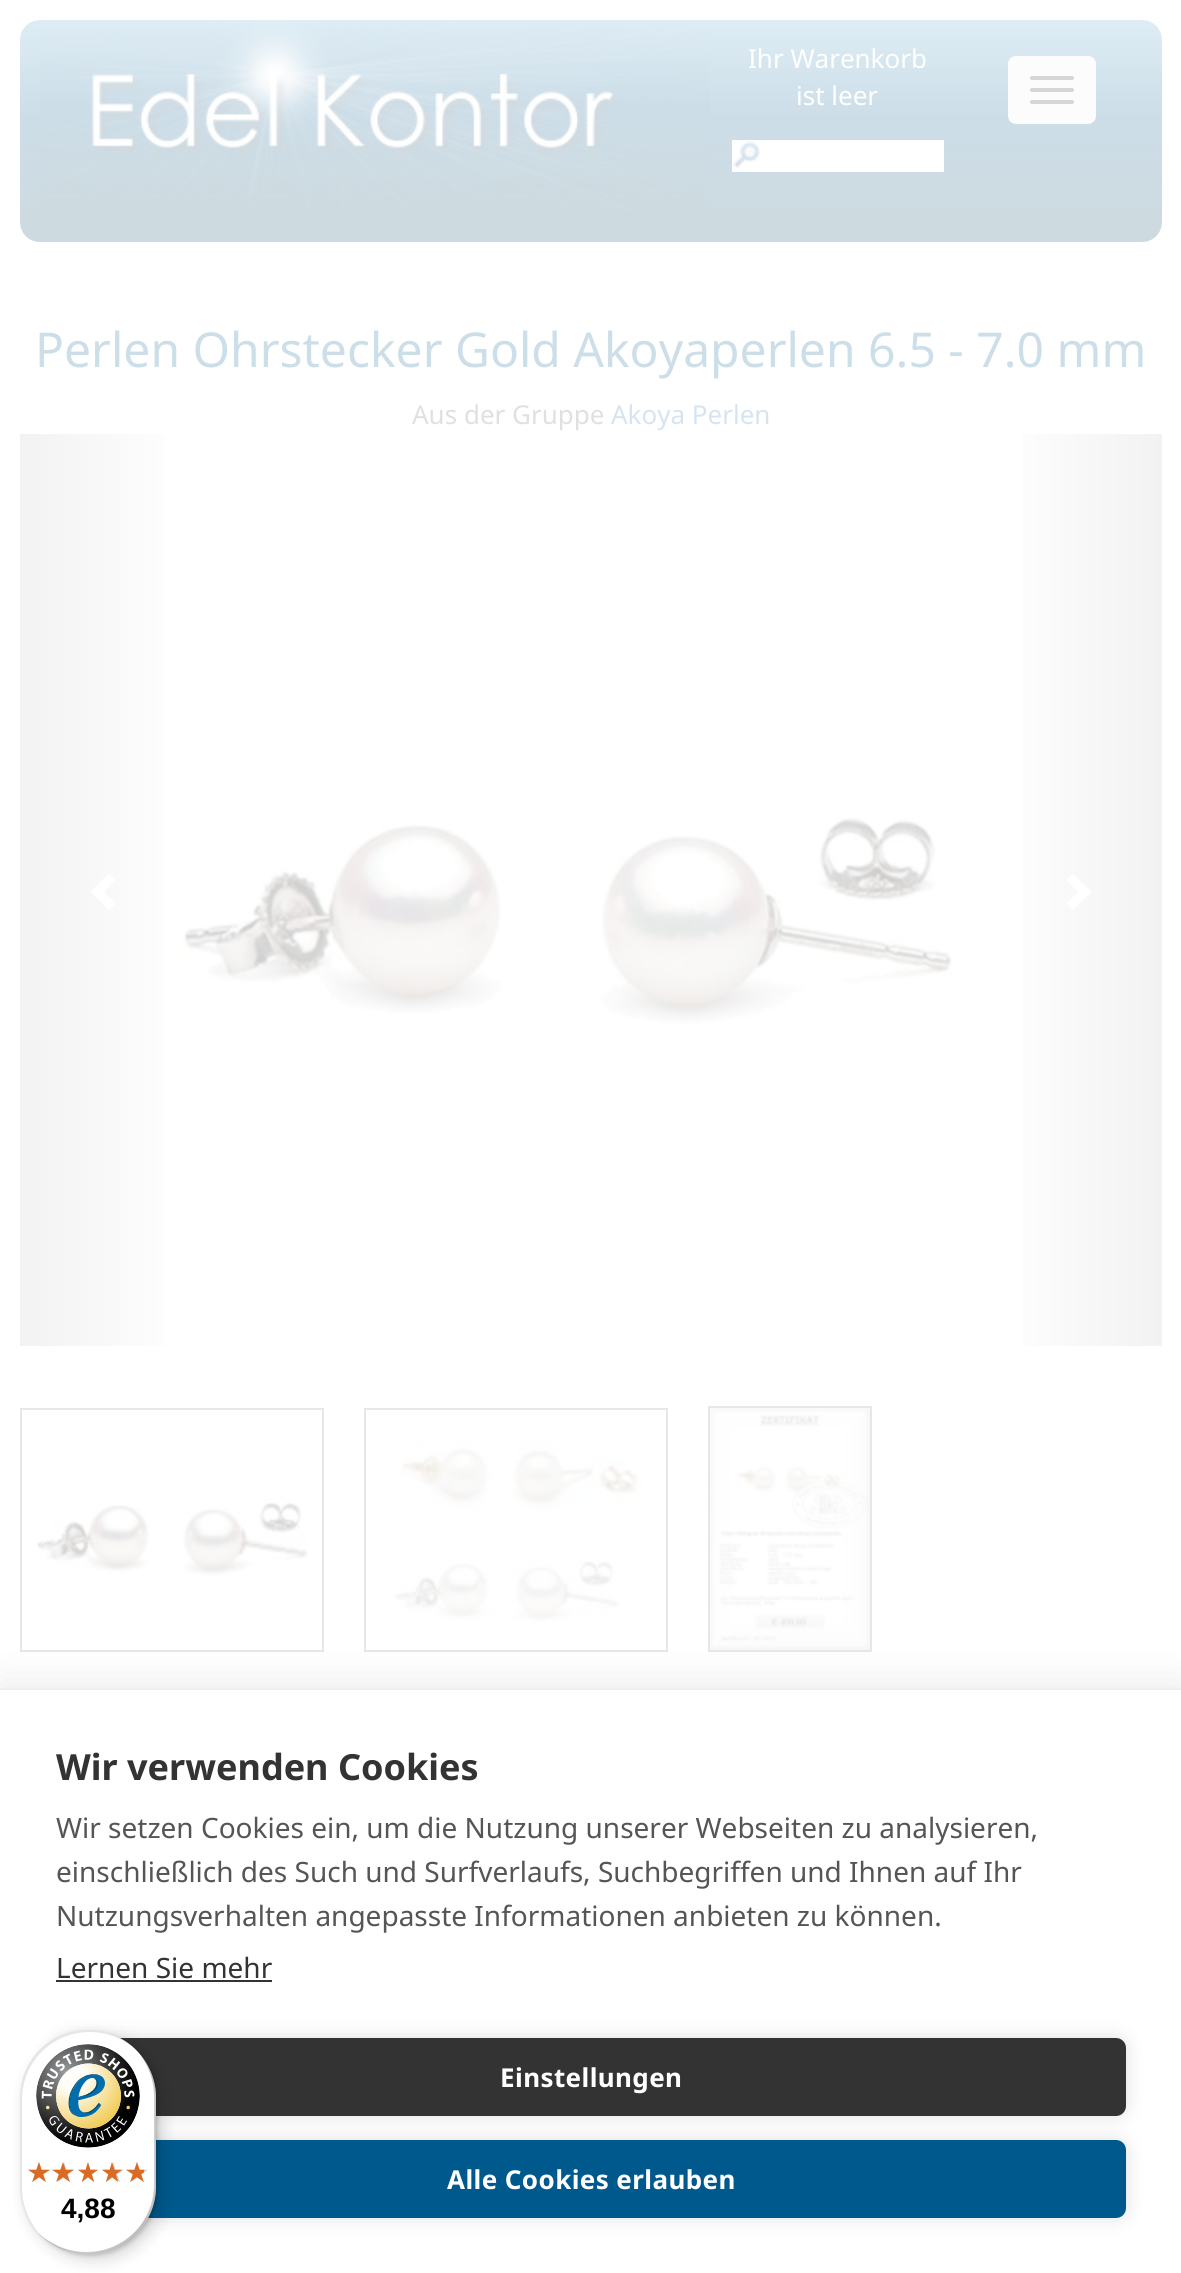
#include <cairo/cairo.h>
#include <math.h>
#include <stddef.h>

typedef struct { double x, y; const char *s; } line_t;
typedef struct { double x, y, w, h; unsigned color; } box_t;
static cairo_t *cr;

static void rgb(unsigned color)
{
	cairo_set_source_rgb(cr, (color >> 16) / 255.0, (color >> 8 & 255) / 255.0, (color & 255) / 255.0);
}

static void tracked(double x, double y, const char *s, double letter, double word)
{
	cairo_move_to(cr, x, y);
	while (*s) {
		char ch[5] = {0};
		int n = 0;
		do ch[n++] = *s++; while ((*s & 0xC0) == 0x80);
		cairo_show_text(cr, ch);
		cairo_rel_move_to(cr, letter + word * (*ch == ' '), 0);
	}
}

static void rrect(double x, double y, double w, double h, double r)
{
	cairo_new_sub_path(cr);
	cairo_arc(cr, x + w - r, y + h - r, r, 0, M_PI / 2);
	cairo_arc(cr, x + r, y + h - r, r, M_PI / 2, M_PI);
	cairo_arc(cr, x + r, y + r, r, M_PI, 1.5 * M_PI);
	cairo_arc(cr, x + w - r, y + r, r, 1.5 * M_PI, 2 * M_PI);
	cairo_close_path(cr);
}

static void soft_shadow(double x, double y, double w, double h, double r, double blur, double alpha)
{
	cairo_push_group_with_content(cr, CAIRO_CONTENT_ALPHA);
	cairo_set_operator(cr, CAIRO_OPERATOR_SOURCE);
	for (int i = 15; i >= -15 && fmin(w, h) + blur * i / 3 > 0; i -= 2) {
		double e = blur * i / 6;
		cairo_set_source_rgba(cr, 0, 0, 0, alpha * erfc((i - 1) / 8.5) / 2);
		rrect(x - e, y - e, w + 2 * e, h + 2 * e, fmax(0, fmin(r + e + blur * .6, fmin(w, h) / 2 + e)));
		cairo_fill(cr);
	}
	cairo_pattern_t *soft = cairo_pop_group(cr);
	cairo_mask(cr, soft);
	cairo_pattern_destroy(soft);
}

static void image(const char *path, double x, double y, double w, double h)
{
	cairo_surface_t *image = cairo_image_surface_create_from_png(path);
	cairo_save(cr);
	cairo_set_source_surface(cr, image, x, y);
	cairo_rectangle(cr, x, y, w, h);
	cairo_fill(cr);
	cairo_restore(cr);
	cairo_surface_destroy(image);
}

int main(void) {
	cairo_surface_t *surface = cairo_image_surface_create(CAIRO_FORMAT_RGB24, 1181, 2273);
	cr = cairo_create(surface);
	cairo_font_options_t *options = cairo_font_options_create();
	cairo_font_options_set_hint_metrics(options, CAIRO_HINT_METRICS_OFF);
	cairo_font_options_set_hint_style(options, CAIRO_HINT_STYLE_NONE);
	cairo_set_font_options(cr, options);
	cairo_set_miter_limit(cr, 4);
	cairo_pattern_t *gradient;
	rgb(0xffffff);
	cairo_paint(cr);
	image("img/1.png", 20, 20, 1142, 222);
	image("img/2.png", 40, 20, 670, 194);
	image("img/3.png", 732, 140, 32, 32);
	rgb(0xffffff);
	cairo_rectangle(cr, 764, 140, 180, 32);
	cairo_fill(cr);
	rgb(0xfcfcfc);
	rrect(1008, 56, 88, 68, 8);
	cairo_fill(cr);
	rgb(0xd6d6d6);
	rrect(1030, 76, 44, 4, 2);
	cairo_fill(cr);
	rrect(1030, 88, 44, 4, 2);
	cairo_fill(cr);
	rrect(1030, 100, 44, 4, 2);
	cairo_fill(cr);
	gradient = cairo_pattern_create_linear(20, 890, 192, 890);
	cairo_pattern_add_color_stop_rgba(gradient, 0, 0.8, 0.8, 0.8, 0.25);
	cairo_pattern_add_color_stop_rgba(gradient, 1, 0.8, 0.8, 0.8, 0);
	cairo_set_source(cr, gradient);
	cairo_pattern_destroy(gradient);
	cairo_rectangle(cr, 20, 434, 144, 912);
	cairo_fill(cr);
	rgb(0xffffff);
	cairo_new_path(cr);
	cairo_move_to(cr, 115.5, 880);
	cairo_line_to(cr, 104, 892);
	cairo_line_to(cr, 115.5, 903.5);
	cairo_line_to(cr, 109, 910);
	cairo_line_to(cr, 90.5, 891.5);
	cairo_line_to(cr, 109, 873.5);
	cairo_close_path(cr);
	cairo_fill(cr);
	image("img/4.png", 180, 817, 774, 209);
	gradient = cairo_pattern_create_linear(990, 890, 1162, 890);
	cairo_pattern_add_color_stop_rgba(gradient, 0, 1, 1, 1, 1);
	cairo_pattern_add_color_stop_rgba(gradient, 1, 0.949, 0.949, 0.949, 1);
	cairo_set_source(cr, gradient);
	cairo_pattern_destroy(gradient);
	cairo_rectangle(cr, 1023, 434, 139, 912);
	cairo_fill(cr);
	rgb(0xffffff);
	cairo_new_path(cr);
	cairo_move_to(cr, 1091.5, 892);
	cairo_line_to(cr, 1073, 910);
	cairo_line_to(cr, 1066.5, 903.5);
	cairo_line_to(cr, 1078.5, 892);
	cairo_line_to(cr, 1066.5, 880);
	cairo_line_to(cr, 1073, 873.5);
	cairo_close_path(cr);
	cairo_fill(cr);
	cairo_rectangle(cr, 21, 1409, 302, 242);
	rgb(0xe7e7e7);
	cairo_stroke(cr);
	image("img/5.png", 37, 1492, 273, 84);
	cairo_rectangle(cr, 365, 1409, 302, 242);
	cairo_stroke(cr);
	image("img/6.png", 392, 1442, 253, 181);
	cairo_rectangle(cr, 709, 1407, 162, 244);
	cairo_stroke(cr);
	image("img/7.png", 710, 1408, 160, 242);
	rgb(0x000000);
	soft_shadow(0, 1688, 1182, 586, 0, 20, 0.1);
	{
		static const box_t items[] = {
			{0, 1690, 1181, 583, 0xffffff},
			{0, 1688, 1181, 2, 0xeeeeee},
			{56, 1980, 216, 2, 0x333333},
		};
		for (size_t i = 0; i < sizeof items / sizeof *items; i++) {
			rgb(items[i].color);
			cairo_rectangle(cr, items[i].x, items[i].y, items[i].w, items[i].h);
			cairo_fill(cr);
		}
	}
	rgb(0x000000);
	soft_shadow(56, 2038, 1070, 78, 10, 10, 0.12);
	rgb(0x333333);
	rrect(56, 2038, 1070, 78, 10);
	cairo_fill(cr);
	rgb(0x000000);
	soft_shadow(56, 2140, 1070, 78, 10, 10, 0.12);
	rgb(0x00598c);
	rrect(56, 2140, 1070, 78, 10);
	cairo_fill(cr);
	rgb(0x000000);
	soft_shadow(26, 2036, 136, 224, 68, 8, 0.15);
	soft_shadow(22, 2032, 136, 224, 68, 2, 0.15);
	rgb(0xffffff);
	rrect(20, 2030, 136, 224, 68);
	cairo_fill(cr);
	cairo_set_source_rgba(cr, 0, 0, 0, 0.1);
	cairo_new_path(cr);
	cairo_move_to(cr, 90, 2032);
	cairo_curve_to(cr, 106, 2032, 121, 2038, 133, 2047);
	cairo_curve_to(cr, 121, 2036, 105, 2030, 88, 2030);
	cairo_curve_to(cr, 50, 2030, 20, 2060, 20, 2098);
	cairo_line_to(cr, 20, 2186);
	cairo_curve_to(cr, 20, 2203, 26, 2219, 37, 2231);
	cairo_curve_to(cr, 28, 2219, 22, 2204, 22, 2188);
	cairo_line_to(cr, 22, 2100);
	cairo_curve_to(cr, 22, 2062, 52, 2032, 90, 2032);
	cairo_close_path(cr);
	cairo_fill(cr);
	cairo_set_source_rgba(cr, 0, 0, 0, 0.2);
	cairo_new_path(cr);
	cairo_move_to(cr, 43, 2237);
	cairo_curve_to(cr, 55, 2248, 71, 2254, 88, 2254);
	cairo_curve_to(cr, 126, 2254, 156, 2224, 156, 2186);
	cairo_line_to(cr, 156, 2098);
	cairo_curve_to(cr, 156, 2081, 150, 2065, 139, 2053);
	cairo_curve_to(cr, 148, 2065, 154, 2080, 154, 2096);
	cairo_line_to(cr, 154, 2184);
	cairo_curve_to(cr, 154, 2222, 124, 2252, 86, 2252);
	cairo_curve_to(cr, 70, 2252, 55, 2246, 43, 2237);
	cairo_close_path(cr);
	cairo_fill(cr);
	cairo_set_source_rgba(cr, 0.196, 0.196, 0.196, 0.2);
	cairo_new_path(cr);
	cairo_move_to(cr, 38, 2233);
	cairo_curve_to(cr, 51, 2246, 68, 2254, 88, 2254);
	cairo_curve_to(cr, 126, 2254, 156, 2224, 156, 2186);
	cairo_line_to(cr, 156, 2098);
	cairo_curve_to(cr, 156, 2078, 148, 2061, 135, 2048);
	cairo_curve_to(cr, 147, 2061, 155, 2078, 155, 2097);
	cairo_line_to(cr, 155, 2185);
	cairo_curve_to(cr, 155, 2222, 124, 2253, 87, 2253);
	cairo_curve_to(cr, 68, 2253, 51, 2245, 38, 2233);
	cairo_close_path(cr);
	cairo_fill(cr);
	cairo_set_source_rgba(cr, 1, 1, 1, 0.3);
	cairo_new_path(cr);
	cairo_move_to(cr, 47, 2240);
	cairo_curve_to(cr, 59, 2249, 73, 2254, 88, 2254);
	cairo_curve_to(cr, 126, 2254, 156, 2224, 156, 2186);
	cairo_line_to(cr, 156, 2098);
	cairo_curve_to(cr, 156, 2083, 151, 2069, 142, 2057);
	cairo_curve_to(cr, 150, 2068, 155, 2082, 155, 2097);
	cairo_line_to(cr, 155, 2185);
	cairo_curve_to(cr, 155, 2223, 125, 2253, 87, 2253);
	cairo_curve_to(cr, 72, 2253, 58, 2248, 47, 2240);
	cairo_close_path(cr);
	cairo_fill(cr);
	image("img/8.png", 36, 2044, 104, 104);
	image("img/9.png", 28, 2162, 22, 20);
	image("img/10.png", 54, 2162, 20, 20);
	image("img/11.png", 78, 2162, 20, 20);
	image("img/12.png", 102, 2162, 22, 20);
	image("img/12.png", 126, 2162, 22, 20);
	image("img/13.png", 28, 2162, 22, 20);
	image("img/14.png", 52, 2162, 22, 20);
	image("img/15.png", 78, 2162, 20, 20);
	image("img/16.png", 102, 2162, 20, 20);
	image("img/17.png", 126, 2162, 18, 20);
	cairo_select_font_face(cr, "Noto Sans", CAIRO_FONT_SLANT_NORMAL, CAIRO_FONT_WEIGHT_NORMAL);
	cairo_set_font_size(cr, 26);
	rgb(0xffffff);
	cairo_move_to(cr, 748, 68);
	cairo_show_text(cr, "Ihr Warenkorb");
	cairo_move_to(cr, 796, 105);
	cairo_show_text(cr, "ist leer");
	cairo_set_font_size(cr, 48);
	rgb(0xccdee8);
	cairo_move_to(cr, 35, 367);
	cairo_show_text(cr, "Perlen Ohrstecker Gold Akoyaperlen 6.5 - 7.0 mm");
	cairo_set_font_size(cr, 26);
	rgb(0xe0e0e0);
	cairo_move_to(cr, 412, 424);
	cairo_show_text(cr, "Aus der Gruppe");
	rgb(0xd6e4f1);
	cairo_move_to(cr, 611, 424);
	cairo_show_text(cr, "Akoya Perlen");
	cairo_select_font_face(cr, "Noto Sans", CAIRO_FONT_SLANT_NORMAL, CAIRO_FONT_WEIGHT_BOLD);
	cairo_set_font_size(cr, 36);
	rgb(0x333333);
	cairo_move_to(cr, 56, 1780);
	cairo_show_text(cr, "Wir verwenden Cookies");
	cairo_select_font_face(cr, "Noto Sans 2", CAIRO_FONT_SLANT_NORMAL, CAIRO_FONT_WEIGHT_NORMAL);
	cairo_set_font_size(cr, 28);
	rgb(0x555555);
	{
		static const line_t items[] = {
			{56, 1838, "Wir setzen Cookies ein, um die Nutzung unserer Webseiten zu analysieren,"},
			{56, 1882, "einschließlich des Such und Surfverlaufs, Suchbegriffen und Ihnen auf Ihr"},
			{56, 1926, "Nutzungsverhalten angepasste Informationen anbieten zu können."},
		};
		for (size_t i = 0; i < sizeof items / sizeof *items; i++) {
			cairo_move_to(cr, items[i].x, items[i].y);
			cairo_show_text(cr, items[i].s);
		}
	}
	rgb(0x333333);
	cairo_move_to(cr, 56, 1978);
	cairo_show_text(cr, "Lernen Sie mehr");
	cairo_select_font_face(cr, "Noto Sans", CAIRO_FONT_SLANT_NORMAL, CAIRO_FONT_WEIGHT_BOLD);
	cairo_set_font_size(cr, 26);
	rgb(0xffffff);
	tracked(500, 2087, "Einstellungen", 0.4, 0);
	tracked(447, 2189, "Alle Cookies erlauben", 0.4, 0);
	cairo_select_font_face(cr, "Liberation Sans", CAIRO_FONT_SLANT_NORMAL, CAIRO_FONT_WEIGHT_BOLD);
	cairo_set_font_size(cr, 28);
	rgb(0x000000);
	cairo_move_to(cr, 61, 2218);
	cairo_show_text(cr, "4,88");
	cairo_surface_write_to_png(surface, "page.png");
	cairo_font_options_destroy(options);
	cairo_destroy(cr);
	cairo_surface_destroy(surface);
	return 0;
}
